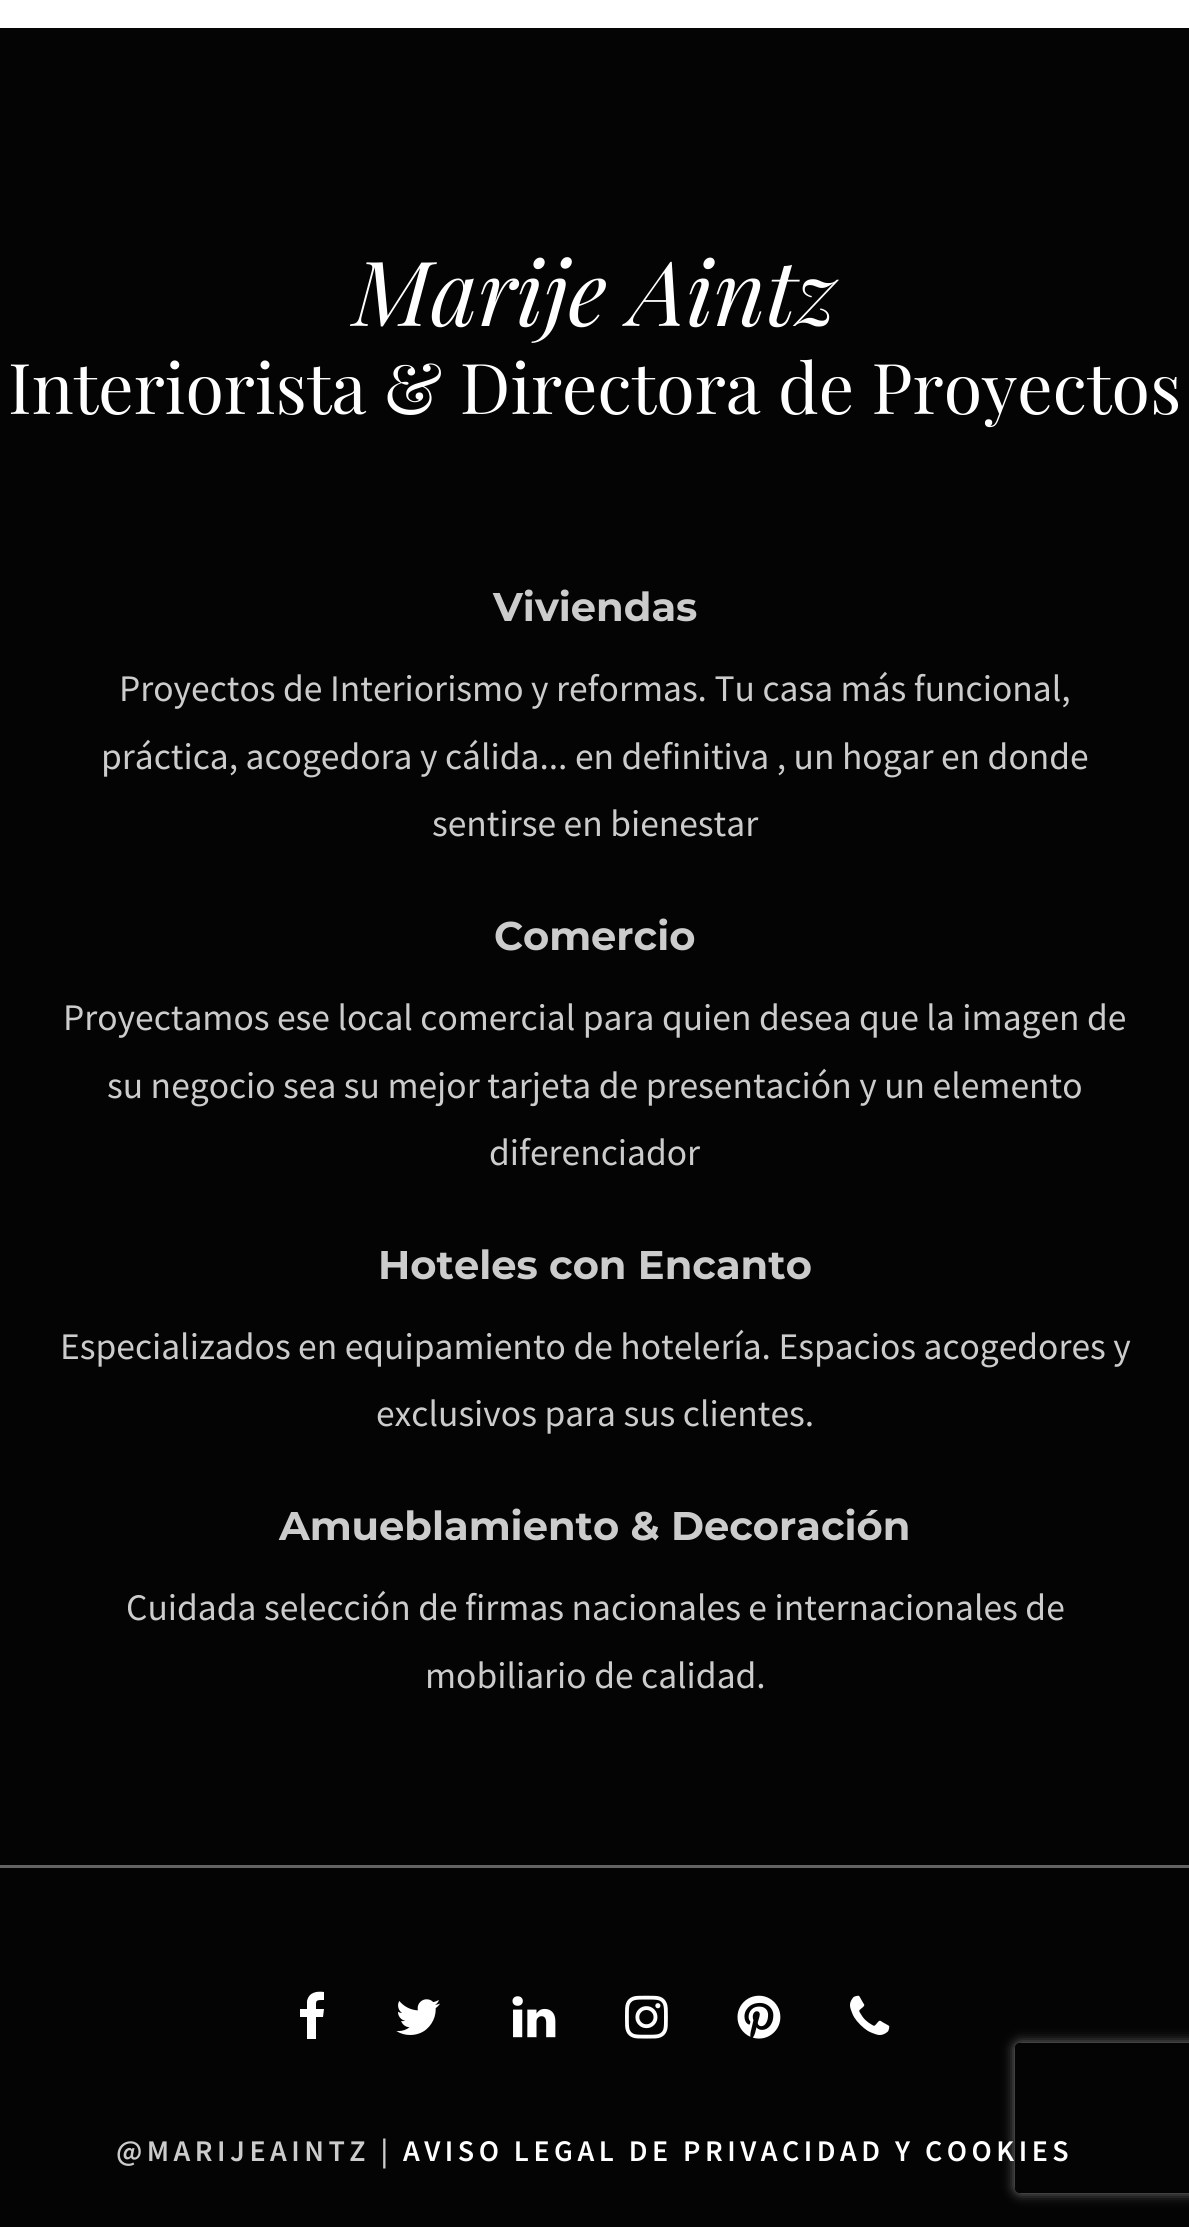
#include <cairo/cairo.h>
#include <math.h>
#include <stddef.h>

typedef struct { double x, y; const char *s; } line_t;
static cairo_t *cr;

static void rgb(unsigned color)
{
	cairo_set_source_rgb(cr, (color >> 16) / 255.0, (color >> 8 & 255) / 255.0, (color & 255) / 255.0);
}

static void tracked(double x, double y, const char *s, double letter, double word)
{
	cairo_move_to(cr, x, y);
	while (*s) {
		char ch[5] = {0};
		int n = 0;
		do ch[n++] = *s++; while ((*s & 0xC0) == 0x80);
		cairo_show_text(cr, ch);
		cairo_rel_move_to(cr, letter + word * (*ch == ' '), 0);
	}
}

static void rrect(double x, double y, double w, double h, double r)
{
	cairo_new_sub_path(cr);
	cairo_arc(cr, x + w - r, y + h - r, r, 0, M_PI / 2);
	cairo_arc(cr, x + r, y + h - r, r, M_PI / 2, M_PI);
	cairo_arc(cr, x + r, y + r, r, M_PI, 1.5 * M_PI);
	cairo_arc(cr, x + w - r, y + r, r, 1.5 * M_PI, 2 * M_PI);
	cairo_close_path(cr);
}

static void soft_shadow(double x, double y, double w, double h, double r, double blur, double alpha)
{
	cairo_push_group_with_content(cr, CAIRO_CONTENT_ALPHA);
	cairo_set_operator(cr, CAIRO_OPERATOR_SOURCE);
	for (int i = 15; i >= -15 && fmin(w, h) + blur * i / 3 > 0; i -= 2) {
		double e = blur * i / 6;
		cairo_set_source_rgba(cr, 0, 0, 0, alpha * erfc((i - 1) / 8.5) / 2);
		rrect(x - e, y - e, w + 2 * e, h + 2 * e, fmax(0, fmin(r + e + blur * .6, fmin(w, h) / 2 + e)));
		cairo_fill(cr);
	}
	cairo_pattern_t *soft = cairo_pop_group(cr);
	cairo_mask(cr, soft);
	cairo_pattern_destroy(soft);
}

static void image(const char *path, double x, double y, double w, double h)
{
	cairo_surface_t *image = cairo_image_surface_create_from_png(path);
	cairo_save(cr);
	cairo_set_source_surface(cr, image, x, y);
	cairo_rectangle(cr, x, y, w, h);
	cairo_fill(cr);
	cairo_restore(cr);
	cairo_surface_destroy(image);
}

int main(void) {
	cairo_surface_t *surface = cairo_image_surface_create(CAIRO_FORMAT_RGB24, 1189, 2227);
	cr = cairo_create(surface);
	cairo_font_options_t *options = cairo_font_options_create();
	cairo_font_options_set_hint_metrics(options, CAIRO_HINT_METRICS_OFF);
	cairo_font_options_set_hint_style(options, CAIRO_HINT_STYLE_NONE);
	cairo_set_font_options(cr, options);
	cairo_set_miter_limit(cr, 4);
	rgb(0xffffff);
	cairo_paint(cr);
	rgb(0x040404);
	cairo_rectangle(cr, 0, 28, 1189, 2199);
	cairo_fill(cr);
	rgb(0x636363);
	cairo_rectangle(cr, 0, 1865, 1189, 3);
	cairo_fill(cr);
	rgb(0xffffff);
	cairo_new_path(cr);
	cairo_move_to(cr, 324, 1992);
	cairo_line_to(cr, 324, 2000);
	cairo_curve_to(cr, 315, 2000, 316, 2000, 316, 2009);
	cairo_line_to(cr, 324, 2009);
	cairo_line_to(cr, 323, 2017);
	cairo_line_to(cr, 316, 2017);
	cairo_line_to(cr, 316, 2039);
	cairo_line_to(cr, 307, 2039);
	cairo_line_to(cr, 307, 2017);
	cairo_line_to(cr, 300, 2017);
	cairo_line_to(cr, 300, 2009);
	cairo_line_to(cr, 307, 2009);
	cairo_line_to(cr, 307, 2001);
	cairo_curve_to(cr, 309, 1992, 317, 1991, 324, 1992);
	cairo_close_path(cr);
	cairo_fill(cr);
	image("img/1.png", 396, 1999, 44, 36);
	image("img/2.png", 512, 1996, 44, 42);
	image("img/3.png", 625, 1995, 43, 44);
	image("img/4.png", 737, 1995, 44, 44);
	image("img/5.png", 850, 1995, 40, 40);
	cairo_save(cr);
	cairo_set_fill_rule(cr, CAIRO_FILL_RULE_EVEN_ODD);
	cairo_new_path(cr);
	cairo_move_to(cr, 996, 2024);
	cairo_line_to(cr, 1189, 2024);
	cairo_line_to(cr, 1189, 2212);
	cairo_line_to(cr, 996, 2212);
	cairo_close_path(cr);
	cairo_move_to(cr, 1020, 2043);
	cairo_line_to(cr, 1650, 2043);
	cairo_curve_to(cr, 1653, 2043, 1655, 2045, 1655, 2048);
	cairo_line_to(cr, 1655, 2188);
	cairo_curve_to(cr, 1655, 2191, 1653, 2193, 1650, 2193);
	cairo_line_to(cr, 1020, 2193);
	cairo_curve_to(cr, 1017, 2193, 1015, 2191, 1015, 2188);
	cairo_line_to(cr, 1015, 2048);
	cairo_curve_to(cr, 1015, 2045, 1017, 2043, 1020, 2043);
	cairo_close_path(cr);
	cairo_clip(cr);
	rgb(0x808080);
	soft_shadow(1015, 2043, 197, 150, 5, 6, 1);
	cairo_restore(cr);
	cairo_select_font_face(cr, "Playfair Display", CAIRO_FONT_SLANT_ITALIC, CAIRO_FONT_WEIGHT_NORMAL);
	cairo_set_font_size(cr, 90);
	cairo_move_to(cr, 353, 326);
	cairo_show_text(cr, "Marije Aintz");
	cairo_select_font_face(cr, "Playfair Display", CAIRO_FONT_SLANT_NORMAL, CAIRO_FONT_WEIGHT_NORMAL);
	cairo_set_font_size(cr, 70);
	cairo_move_to(cr, 8, 414);
	cairo_show_text(cr, "Interiorista & Directora de Proyectos");
	cairo_select_font_face(cr, "Montserrat Thin", CAIRO_FONT_SLANT_NORMAL, CAIRO_FONT_WEIGHT_NORMAL);
	cairo_set_font_size(cr, 40);
	rgb(0xcccccc);
	cairo_move_to(cr, 493, 621);
	cairo_show_text(cr, "Viviendas");
	cairo_select_font_face(cr, "Source Sans Pro", CAIRO_FONT_SLANT_NORMAL, CAIRO_FONT_WEIGHT_NORMAL);
	cairo_set_font_size(cr, 37.5);
	{
		static const line_t items[] = {
			{119, 701, "Proyectos de Interiorismo y reformas. Tu casa más funcional,"},
			{101, 769, "práctica, acogedora y cálida... en definitiva , un hogar en donde"},
			{432, 836, "sentirse en bienestar"},
		};
		for (size_t i = 0; i < sizeof items / sizeof *items; i++) {
			cairo_move_to(cr, items[i].x, items[i].y);
			cairo_show_text(cr, items[i].s);
		}
	}
	cairo_select_font_face(cr, "Montserrat Thin", CAIRO_FONT_SLANT_NORMAL, CAIRO_FONT_WEIGHT_NORMAL);
	cairo_set_font_size(cr, 40);
	cairo_move_to(cr, 494, 950);
	cairo_show_text(cr, "Comercio");
	cairo_select_font_face(cr, "Source Sans Pro", CAIRO_FONT_SLANT_NORMAL, CAIRO_FONT_WEIGHT_NORMAL);
	cairo_set_font_size(cr, 37.5);
	{
		static const line_t items[] = {
			{63, 1030, "Proyectamos ese local comercial para quien desea que la imagen de"},
			{107, 1098, "su negocio sea su mejor tarjeta de presentación y un elemento"},
			{489, 1165, "diferenciador"},
		};
		for (size_t i = 0; i < sizeof items / sizeof *items; i++) {
			cairo_move_to(cr, items[i].x, items[i].y);
			cairo_show_text(cr, items[i].s);
		}
	}
	cairo_select_font_face(cr, "Montserrat Thin", CAIRO_FONT_SLANT_NORMAL, CAIRO_FONT_WEIGHT_NORMAL);
	cairo_set_font_size(cr, 40);
	cairo_move_to(cr, 378, 1279);
	cairo_show_text(cr, "Hoteles con Encanto");
	cairo_select_font_face(cr, "Source Sans Pro", CAIRO_FONT_SLANT_NORMAL, CAIRO_FONT_WEIGHT_NORMAL);
	cairo_set_font_size(cr, 37.5);
	cairo_move_to(cr, 60, 1359);
	cairo_show_text(cr, "Especializados en equipamiento de hotelería. Espacios acogedores y");
	cairo_move_to(cr, 376, 1426);
	cairo_show_text(cr, "exclusivos para sus clientes.");
	cairo_select_font_face(cr, "Montserrat Thin", CAIRO_FONT_SLANT_NORMAL, CAIRO_FONT_WEIGHT_NORMAL);
	cairo_set_font_size(cr, 40);
	cairo_move_to(cr, 279, 1540);
	cairo_show_text(cr, "Amueblamiento & Decoración");
	cairo_select_font_face(cr, "Source Sans Pro", CAIRO_FONT_SLANT_NORMAL, CAIRO_FONT_WEIGHT_NORMAL);
	cairo_set_font_size(cr, 37.5);
	cairo_move_to(cr, 126, 1620);
	cairo_show_text(cr, "Cuidada selección de firmas nacionales e internacionales de");
	cairo_move_to(cr, 425, 1688);
	cairo_show_text(cr, "mobiliario de calidad.");
	cairo_select_font_face(cr, "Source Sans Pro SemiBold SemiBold", CAIRO_FONT_SLANT_NORMAL, CAIRO_FONT_WEIGHT_NORMAL);
	cairo_set_font_size(cr, 30);
	tracked(116, 2161, "@MARIJEAINTZ |", 4.5, 0);
	rgb(0xffffff);
	tracked(403, 2161, "AVISO LEGAL DE PRIVACIDAD Y COOKIES", 4.5, 0);
	cairo_surface_write_to_png(surface, "page.png");
	cairo_font_options_destroy(options);
	cairo_destroy(cr);
	cairo_surface_destroy(surface);
	return 0;
}
